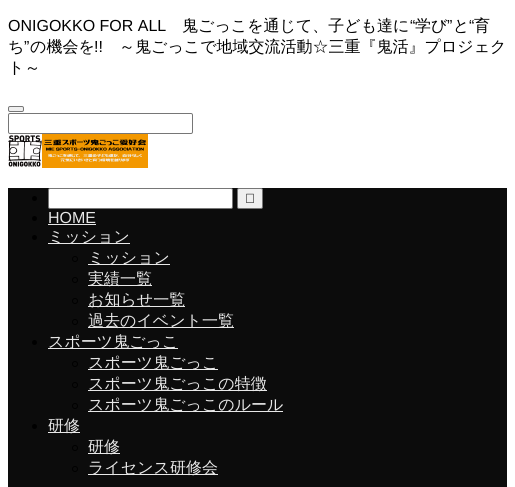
#include <cairo/cairo.h>
#include <math.h>
#include <stddef.h>

typedef struct { double x, y; const char *s; } line_t;
static cairo_t *cr;

static void rgb(unsigned color)
{
	cairo_set_source_rgb(cr, (color >> 16) / 255.0, (color >> 8 & 255) / 255.0, (color & 255) / 255.0);
}

static void rrect(double x, double y, double w, double h, double r)
{
	cairo_new_sub_path(cr);
	cairo_arc(cr, x + w - r, y + h - r, r, 0, M_PI / 2);
	cairo_arc(cr, x + r, y + h - r, r, M_PI / 2, M_PI);
	cairo_arc(cr, x + r, y + r, r, M_PI, 1.5 * M_PI);
	cairo_arc(cr, x + w - r, y + r, r, 1.5 * M_PI, 2 * M_PI);
	cairo_close_path(cr);
}

static void image(const char *path, double x, double y, double w, double h)
{
	cairo_surface_t *image = cairo_image_surface_create_from_png(path);
	cairo_save(cr);
	cairo_set_source_surface(cr, image, x, y);
	cairo_rectangle(cr, x, y, w, h);
	cairo_fill(cr);
	cairo_restore(cr);
	cairo_surface_destroy(image);
}

int main(void) {
	cairo_surface_t *surface = cairo_image_surface_create(CAIRO_FORMAT_RGB24, 515, 487);
	cr = cairo_create(surface);
	cairo_font_options_t *options = cairo_font_options_create();
	cairo_font_options_set_hint_metrics(options, CAIRO_HINT_METRICS_OFF);
	cairo_font_options_set_hint_style(options, CAIRO_HINT_STYLE_NONE);
	cairo_set_font_options(cr, options);
	cairo_set_miter_limit(cr, 4);
	rgb(0xffffff);
	cairo_paint(cr);
	rgb(0xefefef);
	rrect(8.5, 106.5, 15, 5, 1.5);
	cairo_fill_preserve(cr);
	rgb(0x767676);
	cairo_set_line_width(cr, 1);
	cairo_stroke(cr);
	rrect(8.5, 113.5, 184, 20, 1.5);
	cairo_stroke(cr);
	image("img/1.png", 8, 134, 140, 34);
	rgb(0x0c0c0c);
	cairo_rectangle(cr, 8, 188, 499, 299);
	cairo_fill(cr);
	rgb(0x000000);
	cairo_arc(cr, 34.5, 198.5, 2.5, 0, 2 * M_PI);
	cairo_fill(cr);
	rgb(0xffffff);
	rrect(48.5, 188.5, 184, 20, 1.5);
	cairo_fill_preserve(cr);
	rgb(0x767676);
	cairo_stroke(cr);
	rgb(0xefefef);
	rrect(237.5, 188.5, 25, 20, 1.5);
	cairo_fill_preserve(cr);
	rgb(0x767676);
	cairo_stroke(cr);
	image("img/2.png", 246, 193, 8, 10);
	rgb(0x000000);
	cairo_arc(cr, 34.5, 218.5, 2.5, 0, 2 * M_PI);
	cairo_fill(cr);
	rgb(0xe8e8e8);
	cairo_rectangle(cr, 48, 224, 48, 1);
	cairo_fill(cr);
	rgb(0x000000);
	cairo_arc(cr, 34.5, 237.5, 2.5, 0, 2 * M_PI);
	cairo_fill(cr);
	rgb(0xe8e8e8);
	cairo_rectangle(cr, 48, 243, 82, 1);
	cairo_fill(cr);
	cairo_arc(cr, 75, 259, 2.5, 0, 2 * M_PI);
	rgb(0x000000);
	cairo_stroke(cr);
	rgb(0xe8e8e8);
	cairo_rectangle(cr, 88, 264, 82, 1);
	cairo_fill(cr);
	cairo_arc(cr, 75, 280, 2.5, 0, 2 * M_PI);
	rgb(0x000000);
	cairo_stroke(cr);
	rgb(0xe8e8e8);
	cairo_rectangle(cr, 88, 285, 64, 1);
	cairo_fill(cr);
	cairo_arc(cr, 75, 301, 2.5, 0, 2 * M_PI);
	rgb(0x000000);
	cairo_stroke(cr);
	rgb(0xe8e8e8);
	cairo_rectangle(cr, 88, 306, 97, 1);
	cairo_fill(cr);
	cairo_arc(cr, 75, 322, 2.5, 0, 2 * M_PI);
	rgb(0x000000);
	cairo_stroke(cr);
	rgb(0xe8e8e8);
	cairo_rectangle(cr, 88, 327, 146, 1);
	cairo_fill(cr);
	rgb(0x000000);
	cairo_arc(cr, 34.5, 342.5, 2.5, 0, 2 * M_PI);
	cairo_fill(cr);
	rgb(0xe8e8e8);
	cairo_rectangle(cr, 48, 348, 130, 1);
	cairo_fill(cr);
	cairo_arc(cr, 75, 364, 2.5, 0, 2 * M_PI);
	rgb(0x000000);
	cairo_stroke(cr);
	rgb(0xe8e8e8);
	cairo_rectangle(cr, 88, 369, 130, 1);
	cairo_fill(cr);
	cairo_arc(cr, 75, 385, 2.5, 0, 2 * M_PI);
	rgb(0x000000);
	cairo_stroke(cr);
	rgb(0xe8e8e8);
	cairo_rectangle(cr, 88, 390, 179, 1);
	cairo_fill(cr);
	cairo_arc(cr, 75, 406, 2.5, 0, 2 * M_PI);
	rgb(0x000000);
	cairo_stroke(cr);
	rgb(0xe8e8e8);
	cairo_rectangle(cr, 88, 411, 195, 1);
	cairo_fill(cr);
	rgb(0x000000);
	cairo_arc(cr, 34.5, 426.5, 2.5, 0, 2 * M_PI);
	cairo_fill(cr);
	rgb(0xe8e8e8);
	cairo_rectangle(cr, 48, 432, 32, 1);
	cairo_fill(cr);
	cairo_arc(cr, 75, 448, 2.5, 0, 2 * M_PI);
	rgb(0x000000);
	cairo_stroke(cr);
	rgb(0xe8e8e8);
	cairo_rectangle(cr, 88, 453, 32, 1);
	cairo_fill(cr);
	cairo_arc(cr, 75, 469, 2.5, 0, 2 * M_PI);
	rgb(0x000000);
	cairo_stroke(cr);
	rgb(0xe8e8e8);
	cairo_rectangle(cr, 88, 474, 130, 1);
	cairo_fill(cr);
	cairo_select_font_face(cr, "Liberation Sans", CAIRO_FONT_SLANT_NORMAL, CAIRO_FONT_WEIGHT_NORMAL);
	cairo_set_font_size(cr, 16);
	rgb(0x000000);
	cairo_move_to(cr, 8, 31);
	cairo_show_text(cr, "ONIGOKKO FOR ALL");
	cairo_select_font_face(cr, "WenQuanYi Zen Hei Medium", CAIRO_FONT_SLANT_NORMAL, CAIRO_FONT_WEIGHT_NORMAL);
	cairo_move_to(cr, 182, 31);
	cairo_show_text(cr, "鬼ごっこを通じて、子ども達に");
	cairo_select_font_face(cr, "Liberation Sans", CAIRO_FONT_SLANT_NORMAL, CAIRO_FONT_WEIGHT_NORMAL);
	cairo_move_to(cr, 410, 31);
	cairo_show_text(cr, "“");
	cairo_select_font_face(cr, "WenQuanYi Zen Hei Medium", CAIRO_FONT_SLANT_NORMAL, CAIRO_FONT_WEIGHT_NORMAL);
	cairo_move_to(cr, 415, 31);
	cairo_show_text(cr, "学び");
	cairo_select_font_face(cr, "Liberation Sans", CAIRO_FONT_SLANT_NORMAL, CAIRO_FONT_WEIGHT_NORMAL);
	cairo_move_to(cr, 447, 31);
	cairo_show_text(cr, "”");
	cairo_select_font_face(cr, "WenQuanYi Zen Hei Medium", CAIRO_FONT_SLANT_NORMAL, CAIRO_FONT_WEIGHT_NORMAL);
	cairo_move_to(cr, 453, 31);
	cairo_show_text(cr, "と");
	cairo_select_font_face(cr, "Liberation Sans", CAIRO_FONT_SLANT_NORMAL, CAIRO_FONT_WEIGHT_NORMAL);
	cairo_move_to(cr, 469, 31);
	cairo_show_text(cr, "“");
	cairo_select_font_face(cr, "WenQuanYi Zen Hei Medium", CAIRO_FONT_SLANT_NORMAL, CAIRO_FONT_WEIGHT_NORMAL);
	cairo_move_to(cr, 474, 31);
	cairo_show_text(cr, "育");
	cairo_move_to(cr, 8, 52);
	cairo_show_text(cr, "ち");
	cairo_select_font_face(cr, "Liberation Sans", CAIRO_FONT_SLANT_NORMAL, CAIRO_FONT_WEIGHT_NORMAL);
	cairo_move_to(cr, 24, 52);
	cairo_show_text(cr, "”");
	cairo_select_font_face(cr, "WenQuanYi Zen Hei Medium", CAIRO_FONT_SLANT_NORMAL, CAIRO_FONT_WEIGHT_NORMAL);
	cairo_move_to(cr, 30, 52);
	cairo_show_text(cr, "の機会を");
	cairo_select_font_face(cr, "Liberation Sans", CAIRO_FONT_SLANT_NORMAL, CAIRO_FONT_WEIGHT_NORMAL);
	cairo_move_to(cr, 94, 52);
	cairo_show_text(cr, "!!");
	cairo_select_font_face(cr, "WenQuanYi Zen Hei Medium", CAIRO_FONT_SLANT_NORMAL, CAIRO_FONT_WEIGHT_NORMAL);
	cairo_move_to(cr, 119, 52);
	cairo_show_text(cr, "～鬼ごっこで地域交流活動☆三重『鬼活』プロジェク");
	cairo_move_to(cr, 8, 73);
	cairo_show_text(cr, "ト～");
	cairo_select_font_face(cr, "Liberation Sans", CAIRO_FONT_SLANT_NORMAL, CAIRO_FONT_WEIGHT_NORMAL);
	rgb(0xe8e8e8);
	cairo_move_to(cr, 48, 223);
	cairo_show_text(cr, "HOME");
	cairo_select_font_face(cr, "WenQuanYi Zen Hei Medium", CAIRO_FONT_SLANT_NORMAL, CAIRO_FONT_WEIGHT_NORMAL);
	{
		static const line_t items[] = {
			{48, 242, "ミッション"},
			{88, 263, "ミッション"},
			{88, 284, "実績一覧"},
			{88, 305, "お知らせ一覧"},
			{88, 326, "過去のイベント一覧"},
			{48, 347, "スポーツ鬼ごっこ"},
			{88, 368, "スポーツ鬼ごっこ"},
			{88, 389, "スポーツ鬼ごっこの特徴"},
			{88, 410, "スポーツ鬼ごっこのルール"},
			{48, 431, "研修"},
			{88, 452, "研修"},
			{88, 473, "ライセンス研修会"},
		};
		for (size_t i = 0; i < sizeof items / sizeof *items; i++) {
			cairo_move_to(cr, items[i].x, items[i].y);
			cairo_show_text(cr, items[i].s);
		}
	}
	cairo_surface_write_to_png(surface, "page.png");
	cairo_font_options_destroy(options);
	cairo_destroy(cr);
	cairo_surface_destroy(surface);
	return 0;
}
